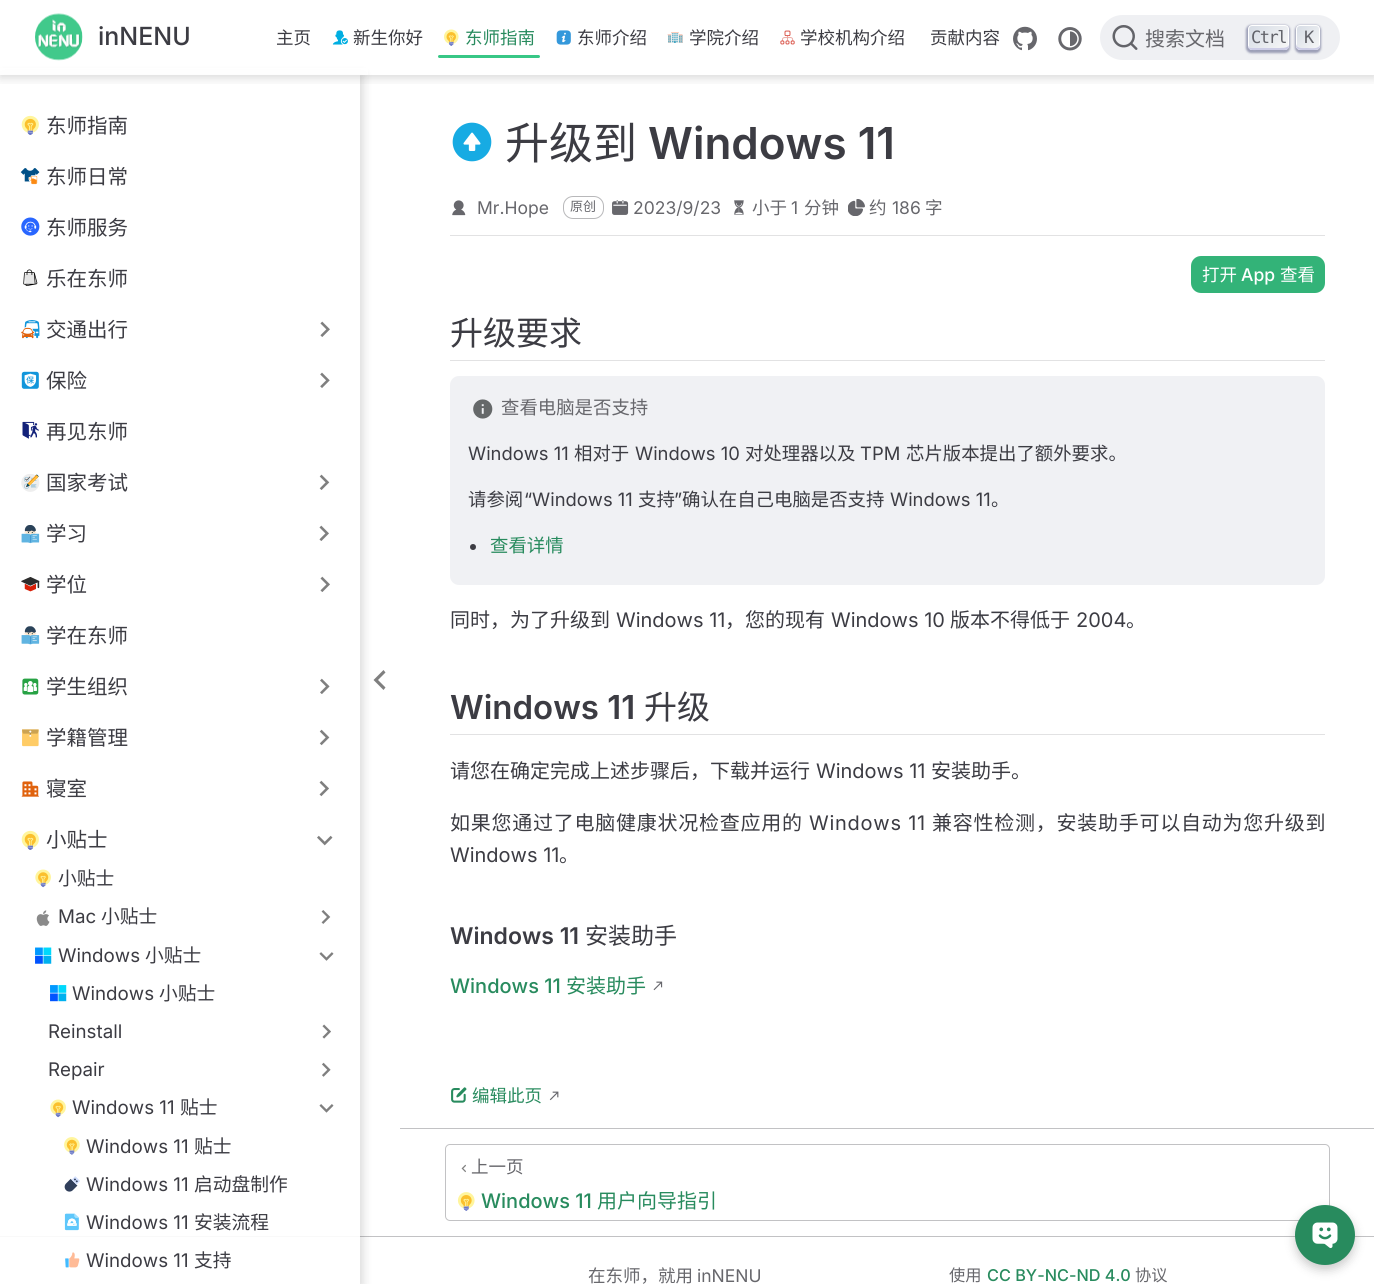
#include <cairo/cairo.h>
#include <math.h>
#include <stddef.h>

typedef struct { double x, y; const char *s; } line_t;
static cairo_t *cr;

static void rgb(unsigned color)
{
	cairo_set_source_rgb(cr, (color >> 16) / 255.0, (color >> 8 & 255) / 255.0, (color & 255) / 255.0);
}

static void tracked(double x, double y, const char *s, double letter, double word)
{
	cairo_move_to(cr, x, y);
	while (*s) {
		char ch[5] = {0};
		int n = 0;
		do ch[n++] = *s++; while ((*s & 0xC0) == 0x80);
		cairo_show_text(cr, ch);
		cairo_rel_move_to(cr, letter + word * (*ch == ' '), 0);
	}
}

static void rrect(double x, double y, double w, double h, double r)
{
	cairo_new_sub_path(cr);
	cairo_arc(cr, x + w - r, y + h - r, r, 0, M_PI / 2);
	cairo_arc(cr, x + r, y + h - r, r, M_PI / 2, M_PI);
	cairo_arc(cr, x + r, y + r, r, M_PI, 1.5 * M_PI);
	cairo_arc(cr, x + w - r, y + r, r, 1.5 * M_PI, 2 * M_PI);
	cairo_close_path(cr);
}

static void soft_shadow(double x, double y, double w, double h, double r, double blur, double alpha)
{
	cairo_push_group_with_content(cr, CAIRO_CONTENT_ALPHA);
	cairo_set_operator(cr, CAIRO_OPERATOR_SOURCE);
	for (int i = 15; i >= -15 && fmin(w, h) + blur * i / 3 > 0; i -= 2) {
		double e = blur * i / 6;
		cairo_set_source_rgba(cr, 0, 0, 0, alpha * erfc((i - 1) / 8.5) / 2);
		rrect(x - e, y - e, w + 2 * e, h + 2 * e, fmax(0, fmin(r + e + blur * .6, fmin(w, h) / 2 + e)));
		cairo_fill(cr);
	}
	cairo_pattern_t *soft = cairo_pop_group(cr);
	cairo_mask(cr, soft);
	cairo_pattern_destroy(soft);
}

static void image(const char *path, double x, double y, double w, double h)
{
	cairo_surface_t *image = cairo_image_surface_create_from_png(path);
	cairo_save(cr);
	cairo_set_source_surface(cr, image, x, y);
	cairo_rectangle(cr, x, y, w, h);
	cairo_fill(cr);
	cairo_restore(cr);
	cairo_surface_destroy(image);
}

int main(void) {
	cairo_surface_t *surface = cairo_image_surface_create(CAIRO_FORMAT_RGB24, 1374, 1284);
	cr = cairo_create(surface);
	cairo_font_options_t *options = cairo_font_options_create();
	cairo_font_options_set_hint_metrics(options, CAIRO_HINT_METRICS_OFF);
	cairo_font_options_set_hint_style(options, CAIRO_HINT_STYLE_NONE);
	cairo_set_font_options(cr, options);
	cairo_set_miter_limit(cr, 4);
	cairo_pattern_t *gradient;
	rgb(0xffffff);
	cairo_paint(cr);
	cairo_save(cr);
	cairo_rectangle(cr, 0, 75, 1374, 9);
	cairo_clip(cr);
	rgb(0x000000);
	soft_shadow(0, 3, 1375, 75, 0, 5, 0.15);
	cairo_restore(cr);
	rgb(0xc2c2c4);
	cairo_rectangle(cr, 360, 1236, 1014, 1);
	cairo_fill(cr);
	rgb(0xf9f9f9);
	cairo_rectangle(cr, 0, 1236, 360, 1);
	cairo_fill(cr);
	cairo_save(cr);
	cairo_set_fill_rule(cr, CAIRO_FILL_RULE_EVEN_ODD);
	cairo_new_path(cr);
	cairo_move_to(cr, 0, 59);
	cairo_line_to(cr, 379, 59);
	cairo_line_to(cr, 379, 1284);
	cairo_line_to(cr, 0, 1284);
	cairo_close_path(cr);
	cairo_move_to(cr, 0, 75);
	cairo_line_to(cr, 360, 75);
	cairo_line_to(cr, 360, 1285);
	cairo_line_to(cr, 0, 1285);
	cairo_close_path(cr);
	cairo_clip(cr);
	rgb(0x000000);
	soft_shadow(3, 75, 360, 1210, 0, 5, 0.15);
	cairo_restore(cr);
	cairo_set_source_rgba(cr, 1, 1, 1, 0.9);
	cairo_rectangle(cr, 0, 68, 368, 7);
	cairo_fill(cr);
	image("img/1.png", 35, 13, 48, 48);
	image("img/2.png", 332, 30, 16, 15);
	image("img/3.png", 444, 29, 15, 17);
	rgb(0x38c786);
	rrect(438, 55, 102, 3, 1.5);
	cairo_fill(cr);
	image("img/4.png", 556, 30, 15, 15);
	image("img/5.png", 667, 32, 16, 11);
	image("img/6.png", 780, 30, 15, 15);
	image("img/7.png", 1013, 26, 24, 25);
	image("img/8.png", 1058, 27, 24, 24);
	rgb(0xeff0f3);
	rrect(1100, 15, 240, 45, 22.5);
	cairo_fill(cr);
	image("img/9.png", 1112, 25, 26, 25);
	rgb(0x1e235a);
	soft_shadow(1246, 25, 44, 28, 5, 1, 0.4);
	gradient = cairo_pattern_create_linear(1252, 21, 1285, 54);
	cairo_pattern_add_color_stop_rgba(gradient, 0, 0.835, 0.859, 0.894, 1);
	cairo_pattern_add_color_stop_rgba(gradient, 1, 0.973, 0.973, 0.973, 1);
	cairo_set_source(cr, gradient);
	cairo_pattern_destroy(gradient);
	rrect(1248.5, 25.5, 40, 24, 3.5);
	cairo_fill_preserve(cr);
	rgb(0xffffff);
	cairo_set_line_width(cr, 1);
	cairo_stroke(cr);
	rgb(0xcdcde6);
	cairo_new_path(cr);
	cairo_move_to(cr, 1289, 44);
	cairo_curve_to(cr, 1289, 47, 1286, 48, 1279, 48);
	cairo_line_to(cr, 1251, 48);
	cairo_curve_to(cr, 1249, 48, 1248, 46, 1248, 45);
	cairo_curve_to(cr, 1248, 51, 1252, 50, 1258, 50);
	cairo_line_to(cr, 1280, 50);
	cairo_curve_to(cr, 1286, 50, 1289, 51, 1289, 44);
	cairo_close_path(cr);
	cairo_fill(cr);
	rgb(0x1e235a);
	soft_shadow(1295, 25, 26, 28, 5, 1, 0.4);
	gradient = cairo_pattern_create_linear(1296, 25, 1320, 50);
	cairo_pattern_add_color_stop_rgba(gradient, 0, 0.835, 0.859, 0.894, 1);
	cairo_pattern_add_color_stop_rgba(gradient, 1, 0.973, 0.973, 0.973, 1);
	cairo_set_source(cr, gradient);
	cairo_pattern_destroy(gradient);
	rrect(1296.5, 25.5, 23, 24, 3.5);
	cairo_fill_preserve(cr);
	rgb(0xffffff);
	cairo_stroke(cr);
	rgb(0xcdcde6);
	cairo_new_path(cr);
	cairo_move_to(cr, 1320, 44.5);
	cairo_curve_to(cr, 1319, 49.5, 1310.5, 48, 1307, 48);
	cairo_curve_to(cr, 1302.5, 48, 1297, 49, 1296, 44);
	cairo_curve_to(cr, 1296, 49, 1297.5, 50, 1302.5, 50);
	cairo_line_to(cr, 1313.5, 50);
	cairo_curve_to(cr, 1318, 50, 1320, 49.5, 1320, 44.5);
	cairo_close_path(cr);
	cairo_fill(cr);
	image("img/10.png", 21, 115, 18, 20);
	image("img/11.png", 20, 168, 20, 17);
	image("img/12.png", 21, 217, 19, 19);
	image("img/13.png", 23, 269, 15, 17);
	image("img/14.png", 21, 320, 19, 19);
	image("img/15.png", 320, 321, 10, 16);
	image("img/16.png", 21, 371, 18, 18);
	image("img/17.png", 320, 372, 10, 16);
	image("img/18.png", 22, 421, 17, 18);
	image("img/19.png", 21, 474, 19, 18);
	image("img/20.png", 319, 474, 11, 16);
	image("img/21.png", 21, 525, 19, 19);
	image("img/22.png", 319, 525, 10, 16);
	image("img/23.png", 21, 577, 19, 15);
	image("img/24.png", 320, 576, 10, 16);
	image("img/25.png", 21, 626, 19, 19);
	image("img/26.png", 22, 678, 17, 17);
	image("img/27.png", 320, 678, 10, 16);
	image("img/28.png", 22, 729, 17, 18);
	image("img/29.png", 319, 729, 11, 17);
	image("img/30.png", 21, 781, 18, 16);
	image("img/31.png", 319, 780, 10, 17);
	image("img/10.png", 21, 830, 18, 20);
	image("img/32.png", 317, 835, 16, 11);
	image("img/33.png", 35, 869, 16, 19);
	image("img/34.png", 36, 910, 14, 16);
	image("img/35.png", 321, 910, 10, 14);
	image("img/36.png", 35, 947, 17, 17);
	image("img/37.png", 319, 952, 15, 9);
	image("img/38.png", 50, 985, 17, 17);
	image("img/39.png", 322, 1024, 9, 15);
	image("img/40.png", 322, 1062, 9, 15);
	image("img/33.png", 50, 1099, 16, 19);
	image("img/41.png", 319, 1104, 15, 9);
	image("img/42.png", 64, 1137, 16, 18);
	image("img/43.png", 64, 1176, 16, 16);
	image("img/44.png", 64, 1213, 15, 18);
	image("img/45.png", 65, 1252, 15, 16);
	rgb(0x7f7f7f);
	cairo_new_path(cr);
	cairo_move_to(cr, 385.5, 687.5);
	cairo_line_to(cr, 378, 680);
	cairo_line_to(cr, 385.5, 672.5);
	cairo_line_to(cr, 383.5, 670);
	cairo_line_to(cr, 373.5, 680);
	cairo_line_to(cr, 383.5, 690);
	cairo_close_path(cr);
	cairo_fill(cr);
	image("img/46.png", 452, 122, 40, 40);
	image("img/47.png", 452, 200, 14, 16);
	rrect(563.5, 196.5, 40, 22, 9.5);
	rgb(0xb8b8ba);
	cairo_stroke(cr);
	image("img/48.png", 612, 200, 17, 15);
	image("img/49.png", 734, 200, 10, 15);
	image("img/50.png", 848, 199, 17, 17);
	rgb(0xe2e2e3);
	cairo_rectangle(cr, 450, 235, 875, 1);
	cairo_fill(cr);
	rgb(0x33b378);
	rrect(1191, 256, 134, 37, 10);
	cairo_fill(cr);
	rgb(0xe2e2e3);
	cairo_rectangle(cr, 450, 360, 875, 1);
	cairo_fill(cr);
	rgb(0xf0f1f4);
	rrect(450, 376, 875, 209, 9);
	cairo_fill(cr);
	image("img/51.png", 473, 399, 20, 20);
	rgb(0x3c3c43);
	cairo_arc(cr, 473, 547, 3, 0, 2 * M_PI);
	cairo_fill(cr);
	rgb(0xe2e2e3);
	cairo_rectangle(cr, 450, 734, 875, 1);
	cairo_fill(cr);
	image("img/52.png", 653, 981, 10, 10);
	image("img/53.png", 451, 1087, 16, 16);
	image("img/54.png", 549, 1091, 10, 10);
	rgb(0xc2c2c4);
	cairo_rectangle(cr, 400, 1128, 974, 1);
	cairo_fill(cr);
	rrect(445.5, 1144.5, 884, 76, 4.5);
	cairo_stroke(cr);
	image("img/55.png", 461, 1164, 5, 9);
	image("img/56.png", 457, 1192, 18, 19);
	rgb(0x000000);
	soft_shadow(1295, 1210, 60, 60, 30, 5, 0.2);
	rgb(0x288b5e);
	cairo_arc(cr, 1325, 1235, 30, 0, 2 * M_PI);
	cairo_fill(cr);
	image("img/57.png", 1312, 1222, 26, 27);
	cairo_select_font_face(cr, "Inter Medium", CAIRO_FONT_SLANT_NORMAL, CAIRO_FONT_WEIGHT_NORMAL);
	cairo_set_font_size(cr, 25);
	rgb(0x3c3c43);
	cairo_move_to(cr, 98, 45);
	cairo_show_text(cr, "inNENU");
	cairo_select_font_face(cr, "Noto Sans CJK SC", CAIRO_FONT_SLANT_NORMAL, CAIRO_FONT_WEIGHT_NORMAL);
	cairo_set_font_size(cr, 17.5);
	cairo_move_to(cr, 276, 44);
	cairo_show_text(cr, "主页");
	cairo_move_to(cr, 353, 44);
	cairo_show_text(cr, "新生你好");
	rgb(0x288b5e);
	cairo_move_to(cr, 465, 44);
	cairo_show_text(cr, "东师指南");
	rgb(0x3c3c43);
	{
		static const line_t items[] = {
			{577, 44, "东师介绍"},
			{689, 44, "学院介绍"},
			{800, 44, "学校机构介绍"},
			{930, 44, "贡献内容"},
		};
		for (size_t i = 0; i < sizeof items / sizeof *items; i++) {
			cairo_move_to(cr, items[i].x, items[i].y);
			cairo_show_text(cr, items[i].s);
		}
	}
	cairo_set_font_size(cr, 20);
	rgb(0x67676c);
	cairo_move_to(cr, 1145, 46);
	cairo_show_text(cr, "搜索文档");
	cairo_select_font_face(cr, "DejaVu Sans Mono", CAIRO_FONT_SLANT_NORMAL, CAIRO_FONT_WEIGHT_NORMAL);
	cairo_set_font_size(cr, 17);
	rgb(0x616269);
	tracked(1251, 43, "Ctrl", -1.5, 0);
	tracked(1304, 43, "K", -1.5, 0);
	cairo_select_font_face(cr, "Noto Sans CJK SC", CAIRO_FONT_SLANT_NORMAL, CAIRO_FONT_WEIGHT_NORMAL);
	cairo_set_font_size(cr, 20.5);
	rgb(0x3c3c43);
	{
		static const line_t items[] = {
			{46, 133, "东师指南"},
			{46, 184, "东师日常"},
			{46, 235, "东师服务"},
			{46, 286, "乐在东师"},
			{46, 337, "交通出行"},
			{46, 388, "保险"},
			{46, 439, "再见东师"},
			{46, 490, "国家考试"},
			{46, 541, "学习"},
			{46, 592, "学位"},
			{46, 643, "学在东师"},
			{46, 694, "学生组织"},
			{46, 745, "学籍管理"},
			{46, 796, "寝室"},
			{46, 847, "小贴士"},
		};
		for (size_t i = 0; i < sizeof items / sizeof *items; i++) {
			cairo_move_to(cr, items[i].x, items[i].y);
			cairo_show_text(cr, items[i].s);
		}
	}
	cairo_set_font_size(cr, 18.75);
	cairo_move_to(cr, 58, 885);
	cairo_show_text(cr, "小贴士");
	cairo_select_font_face(cr, "Inter", CAIRO_FONT_SLANT_NORMAL, CAIRO_FONT_WEIGHT_NORMAL);
	cairo_move_to(cr, 58, 923);
	cairo_show_text(cr, "Mac");
	cairo_select_font_face(cr, "Noto Sans CJK SC", CAIRO_FONT_SLANT_NORMAL, CAIRO_FONT_WEIGHT_NORMAL);
	cairo_move_to(cr, 101, 923);
	cairo_show_text(cr, "小贴士");
	cairo_select_font_face(cr, "Inter", CAIRO_FONT_SLANT_NORMAL, CAIRO_FONT_WEIGHT_NORMAL);
	cairo_move_to(cr, 58, 962);
	cairo_show_text(cr, "Windows");
	cairo_select_font_face(cr, "Noto Sans CJK SC", CAIRO_FONT_SLANT_NORMAL, CAIRO_FONT_WEIGHT_NORMAL);
	cairo_move_to(cr, 145, 962);
	cairo_show_text(cr, "小贴士");
	cairo_select_font_face(cr, "Inter", CAIRO_FONT_SLANT_NORMAL, CAIRO_FONT_WEIGHT_NORMAL);
	cairo_move_to(cr, 72, 1000);
	cairo_show_text(cr, "Windows");
	cairo_select_font_face(cr, "Noto Sans CJK SC", CAIRO_FONT_SLANT_NORMAL, CAIRO_FONT_WEIGHT_NORMAL);
	cairo_move_to(cr, 159, 1000);
	cairo_show_text(cr, "小贴士");
	cairo_select_font_face(cr, "Inter", CAIRO_FONT_SLANT_NORMAL, CAIRO_FONT_WEIGHT_NORMAL);
	{
		static const line_t items[] = {
			{48, 1038, "Reinstall"},
			{48, 1076, "Repair"},
			{72, 1114, "Windows 11"},
		};
		for (size_t i = 0; i < sizeof items / sizeof *items; i++) {
			cairo_move_to(cr, items[i].x, items[i].y);
			cairo_show_text(cr, items[i].s);
		}
	}
	cairo_select_font_face(cr, "Noto Sans CJK SC", CAIRO_FONT_SLANT_NORMAL, CAIRO_FONT_WEIGHT_NORMAL);
	cairo_move_to(cr, 180, 1114);
	cairo_show_text(cr, "贴士");
	cairo_select_font_face(cr, "Inter", CAIRO_FONT_SLANT_NORMAL, CAIRO_FONT_WEIGHT_NORMAL);
	cairo_move_to(cr, 86, 1153);
	cairo_show_text(cr, "Windows 11");
	cairo_select_font_face(cr, "Noto Sans CJK SC", CAIRO_FONT_SLANT_NORMAL, CAIRO_FONT_WEIGHT_NORMAL);
	cairo_move_to(cr, 194, 1153);
	cairo_show_text(cr, "贴士");
	cairo_select_font_face(cr, "Inter", CAIRO_FONT_SLANT_NORMAL, CAIRO_FONT_WEIGHT_NORMAL);
	cairo_move_to(cr, 86, 1191);
	cairo_show_text(cr, "Windows 11");
	cairo_select_font_face(cr, "Noto Sans CJK SC", CAIRO_FONT_SLANT_NORMAL, CAIRO_FONT_WEIGHT_NORMAL);
	cairo_move_to(cr, 194, 1191);
	cairo_show_text(cr, "启动盘制作");
	cairo_select_font_face(cr, "Inter", CAIRO_FONT_SLANT_NORMAL, CAIRO_FONT_WEIGHT_NORMAL);
	cairo_move_to(cr, 86, 1229);
	cairo_show_text(cr, "Windows 11");
	cairo_select_font_face(cr, "Noto Sans CJK SC", CAIRO_FONT_SLANT_NORMAL, CAIRO_FONT_WEIGHT_NORMAL);
	cairo_move_to(cr, 194, 1229);
	cairo_show_text(cr, "安装流程");
	cairo_select_font_face(cr, "Inter", CAIRO_FONT_SLANT_NORMAL, CAIRO_FONT_WEIGHT_NORMAL);
	cairo_move_to(cr, 86, 1267);
	cairo_show_text(cr, "Windows 11");
	cairo_select_font_face(cr, "Noto Sans CJK SC", CAIRO_FONT_SLANT_NORMAL, CAIRO_FONT_WEIGHT_NORMAL);
	cairo_move_to(cr, 194, 1267);
	cairo_show_text(cr, "支持");
	cairo_set_font_size(cr, 44);
	cairo_move_to(cr, 505, 159);
	cairo_show_text(cr, "升级到");
	cairo_select_font_face(cr, "Inter SemiBold", CAIRO_FONT_SLANT_NORMAL, CAIRO_FONT_WEIGHT_NORMAL);
	cairo_move_to(cr, 648, 159);
	cairo_show_text(cr, "Windows 11");
	cairo_select_font_face(cr, "Inter", CAIRO_FONT_SLANT_NORMAL, CAIRO_FONT_WEIGHT_NORMAL);
	cairo_set_font_size(cr, 17.5);
	rgb(0x67676c);
	cairo_move_to(cr, 477, 214);
	cairo_show_text(cr, "Mr.Hope");
	cairo_select_font_face(cr, "Noto Sans CJK SC", CAIRO_FONT_SLANT_NORMAL, CAIRO_FONT_WEIGHT_NORMAL);
	cairo_set_font_size(cr, 13);
	cairo_move_to(cr, 570, 211);
	cairo_show_text(cr, "原创");
	cairo_select_font_face(cr, "Inter", CAIRO_FONT_SLANT_NORMAL, CAIRO_FONT_WEIGHT_NORMAL);
	cairo_set_font_size(cr, 17.5);
	cairo_move_to(cr, 633, 214);
	cairo_show_text(cr, "2023/9/23");
	cairo_select_font_face(cr, "Noto Sans CJK SC", CAIRO_FONT_SLANT_NORMAL, CAIRO_FONT_WEIGHT_NORMAL);
	cairo_move_to(cr, 752, 214);
	cairo_show_text(cr, "小于");
	cairo_select_font_face(cr, "Inter", CAIRO_FONT_SLANT_NORMAL, CAIRO_FONT_WEIGHT_NORMAL);
	cairo_move_to(cr, 791, 214);
	cairo_show_text(cr, "1");
	cairo_select_font_face(cr, "Noto Sans CJK SC", CAIRO_FONT_SLANT_NORMAL, CAIRO_FONT_WEIGHT_NORMAL);
	cairo_move_to(cr, 804, 214);
	cairo_show_text(cr, "分钟");
	cairo_move_to(cr, 869, 214);
	cairo_show_text(cr, "约");
	cairo_select_font_face(cr, "Inter", CAIRO_FONT_SLANT_NORMAL, CAIRO_FONT_WEIGHT_NORMAL);
	cairo_move_to(cr, 892, 214);
	cairo_show_text(cr, "186");
	cairo_select_font_face(cr, "Noto Sans CJK SC", CAIRO_FONT_SLANT_NORMAL, CAIRO_FONT_WEIGHT_NORMAL);
	cairo_move_to(cr, 925, 214);
	cairo_show_text(cr, "字");
	rgb(0xffffff);
	cairo_move_to(cr, 1202, 281);
	cairo_show_text(cr, "打开");
	cairo_select_font_face(cr, "Inter Medium", CAIRO_FONT_SLANT_NORMAL, CAIRO_FONT_WEIGHT_NORMAL);
	cairo_move_to(cr, 1241, 281);
	cairo_show_text(cr, "App");
	cairo_select_font_face(cr, "Noto Sans CJK SC", CAIRO_FONT_SLANT_NORMAL, CAIRO_FONT_WEIGHT_NORMAL);
	cairo_move_to(cr, 1280, 281);
	cairo_show_text(cr, "查看");
	cairo_set_font_size(cr, 33);
	rgb(0x3c3c43);
	cairo_move_to(cr, 450, 345);
	cairo_show_text(cr, "升级要求");
	cairo_set_font_size(cr, 18.4);
	rgb(0x67676c);
	cairo_move_to(cr, 501, 414);
	cairo_show_text(cr, "查看电脑是否支持");
	cairo_select_font_face(cr, "Inter", CAIRO_FONT_SLANT_NORMAL, CAIRO_FONT_WEIGHT_NORMAL);
	rgb(0x3c3c43);
	cairo_move_to(cr, 468, 460);
	cairo_show_text(cr, "Windows 11");
	cairo_select_font_face(cr, "Noto Sans CJK SC", CAIRO_FONT_SLANT_NORMAL, CAIRO_FONT_WEIGHT_NORMAL);
	cairo_move_to(cr, 574, 460);
	cairo_show_text(cr, "相对于");
	cairo_select_font_face(cr, "Inter", CAIRO_FONT_SLANT_NORMAL, CAIRO_FONT_WEIGHT_NORMAL);
	cairo_move_to(cr, 635, 460);
	cairo_show_text(cr, "Windows 10");
	cairo_select_font_face(cr, "Noto Sans CJK SC", CAIRO_FONT_SLANT_NORMAL, CAIRO_FONT_WEIGHT_NORMAL);
	cairo_move_to(cr, 745, 460);
	cairo_show_text(cr, "对处理器以及");
	cairo_select_font_face(cr, "Inter", CAIRO_FONT_SLANT_NORMAL, CAIRO_FONT_WEIGHT_NORMAL);
	cairo_move_to(cr, 860, 460);
	cairo_show_text(cr, "TPM");
	cairo_select_font_face(cr, "Noto Sans CJK SC", CAIRO_FONT_SLANT_NORMAL, CAIRO_FONT_WEIGHT_NORMAL);
	cairo_move_to(cr, 906, 460);
	cairo_show_text(cr, "芯片版本提出了额外要求。");
	cairo_move_to(cr, 468, 506);
	cairo_show_text(cr, "请参阅");
	cairo_select_font_face(cr, "Inter", CAIRO_FONT_SLANT_NORMAL, CAIRO_FONT_WEIGHT_NORMAL);
	cairo_move_to(cr, 524, 506);
	cairo_show_text(cr, "“Windows 11");
	cairo_select_font_face(cr, "Noto Sans CJK SC", CAIRO_FONT_SLANT_NORMAL, CAIRO_FONT_WEIGHT_NORMAL);
	cairo_move_to(cr, 638, 506);
	cairo_show_text(cr, "支持");
	cairo_select_font_face(cr, "Inter", CAIRO_FONT_SLANT_NORMAL, CAIRO_FONT_WEIGHT_NORMAL);
	cairo_move_to(cr, 674, 506);
	cairo_show_text(cr, "”");
	cairo_select_font_face(cr, "Noto Sans CJK SC", CAIRO_FONT_SLANT_NORMAL, CAIRO_FONT_WEIGHT_NORMAL);
	cairo_move_to(cr, 682, 506);
	cairo_show_text(cr, "确认在自己电脑是否支持");
	cairo_select_font_face(cr, "Inter", CAIRO_FONT_SLANT_NORMAL, CAIRO_FONT_WEIGHT_NORMAL);
	cairo_move_to(cr, 890, 506);
	cairo_show_text(cr, "Windows 11");
	cairo_select_font_face(cr, "Noto Sans CJK SC", CAIRO_FONT_SLANT_NORMAL, CAIRO_FONT_WEIGHT_NORMAL);
	cairo_move_to(cr, 991, 506);
	cairo_show_text(cr, "。");
	rgb(0x288b5e);
	cairo_move_to(cr, 490, 552);
	cairo_show_text(cr, "查看详情");
	cairo_set_font_size(cr, 20);
	rgb(0x3c3c43);
	cairo_move_to(cr, 450, 627);
	cairo_show_text(cr, "同时，为了升级到");
	cairo_select_font_face(cr, "Inter", CAIRO_FONT_SLANT_NORMAL, CAIRO_FONT_WEIGHT_NORMAL);
	cairo_move_to(cr, 616, 627);
	cairo_show_text(cr, "Windows 11");
	cairo_select_font_face(cr, "Noto Sans CJK SC", CAIRO_FONT_SLANT_NORMAL, CAIRO_FONT_WEIGHT_NORMAL);
	cairo_move_to(cr, 725, 627);
	cairo_show_text(cr, "，您的现有");
	cairo_select_font_face(cr, "Inter", CAIRO_FONT_SLANT_NORMAL, CAIRO_FONT_WEIGHT_NORMAL);
	cairo_move_to(cr, 831, 627);
	cairo_show_text(cr, "Windows 10");
	cairo_select_font_face(cr, "Noto Sans CJK SC", CAIRO_FONT_SLANT_NORMAL, CAIRO_FONT_WEIGHT_NORMAL);
	cairo_move_to(cr, 950, 627);
	cairo_show_text(cr, "版本不得低于");
	cairo_select_font_face(cr, "Inter", CAIRO_FONT_SLANT_NORMAL, CAIRO_FONT_WEIGHT_NORMAL);
	cairo_move_to(cr, 1076, 627);
	cairo_show_text(cr, "2004");
	cairo_select_font_face(cr, "Noto Sans CJK SC", CAIRO_FONT_SLANT_NORMAL, CAIRO_FONT_WEIGHT_NORMAL);
	cairo_move_to(cr, 1126, 627);
	cairo_show_text(cr, "。");
	cairo_select_font_face(cr, "Inter SemiBold", CAIRO_FONT_SLANT_NORMAL, CAIRO_FONT_WEIGHT_NORMAL);
	cairo_set_font_size(cr, 33);
	cairo_move_to(cr, 450, 719);
	cairo_show_text(cr, "Windows 11");
	cairo_select_font_face(cr, "Noto Sans CJK SC", CAIRO_FONT_SLANT_NORMAL, CAIRO_FONT_WEIGHT_NORMAL);
	cairo_move_to(cr, 644, 719);
	cairo_show_text(cr, "升级");
	cairo_set_font_size(cr, 20);
	cairo_move_to(cr, 450, 778);
	cairo_show_text(cr, "请您在确定完成上述步骤后，下载并运行");
	cairo_select_font_face(cr, "Inter", CAIRO_FONT_SLANT_NORMAL, CAIRO_FONT_WEIGHT_NORMAL);
	cairo_move_to(cr, 816, 778);
	cairo_show_text(cr, "Windows 11");
	cairo_select_font_face(cr, "Noto Sans CJK SC", CAIRO_FONT_SLANT_NORMAL, CAIRO_FONT_WEIGHT_NORMAL);
	cairo_move_to(cr, 931, 778);
	cairo_show_text(cr, "安装助手。");
	tracked(450, 830, "如果您通过了电脑健康状况检查应用的", 0.75, 0);
	cairo_select_font_face(cr, "Inter", CAIRO_FONT_SLANT_NORMAL, CAIRO_FONT_WEIGHT_NORMAL);
	tracked(809, 830, "Windows 11", 0.75, 0);
	cairo_select_font_face(cr, "Noto Sans CJK SC", CAIRO_FONT_SLANT_NORMAL, CAIRO_FONT_WEIGHT_NORMAL);
	tracked(932, 830, "兼容性检测，安装助手可以自动为您升级到", 0.75, 0);
	cairo_select_font_face(cr, "Inter", CAIRO_FONT_SLANT_NORMAL, CAIRO_FONT_WEIGHT_NORMAL);
	cairo_move_to(cr, 450, 862);
	cairo_show_text(cr, "Windows 11");
	cairo_select_font_face(cr, "Noto Sans CJK SC", CAIRO_FONT_SLANT_NORMAL, CAIRO_FONT_WEIGHT_NORMAL);
	cairo_move_to(cr, 559, 862);
	cairo_show_text(cr, "。");
	cairo_select_font_face(cr, "Inter SemiBold", CAIRO_FONT_SLANT_NORMAL, CAIRO_FONT_WEIGHT_NORMAL);
	cairo_set_font_size(cr, 23);
	cairo_move_to(cr, 450, 944);
	cairo_show_text(cr, "Windows 11");
	cairo_select_font_face(cr, "Noto Sans CJK SC", CAIRO_FONT_SLANT_NORMAL, CAIRO_FONT_WEIGHT_NORMAL);
	cairo_move_to(cr, 585, 944);
	cairo_show_text(cr, "安装助手");
	cairo_select_font_face(cr, "Inter Medium", CAIRO_FONT_SLANT_NORMAL, CAIRO_FONT_WEIGHT_NORMAL);
	cairo_set_font_size(cr, 20);
	rgb(0x288b5e);
	cairo_move_to(cr, 450, 993);
	cairo_show_text(cr, "Windows 11");
	cairo_select_font_face(cr, "Noto Sans CJK SC", CAIRO_FONT_SLANT_NORMAL, CAIRO_FONT_WEIGHT_NORMAL);
	cairo_move_to(cr, 566, 993);
	cairo_show_text(cr, "安装助手");
	cairo_set_font_size(cr, 17.5);
	cairo_move_to(cr, 472, 1102);
	cairo_show_text(cr, "编辑此页");
	rgb(0x67676c);
	cairo_move_to(cr, 471, 1173);
	cairo_show_text(cr, "上一页");
	cairo_select_font_face(cr, "Inter Medium", CAIRO_FONT_SLANT_NORMAL, CAIRO_FONT_WEIGHT_NORMAL);
	cairo_set_font_size(cr, 20);
	rgb(0x288b5e);
	cairo_move_to(cr, 481, 1208);
	cairo_show_text(cr, "Windows 11");
	cairo_select_font_face(cr, "Noto Sans CJK SC", CAIRO_FONT_SLANT_NORMAL, CAIRO_FONT_WEIGHT_NORMAL);
	cairo_move_to(cr, 597, 1208);
	cairo_show_text(cr, "用户向导指引");
	cairo_set_font_size(cr, 17.5);
	rgb(0x67676c);
	cairo_move_to(cr, 588, 1282);
	cairo_show_text(cr, "在东师，就用");
	cairo_select_font_face(cr, "Inter", CAIRO_FONT_SLANT_NORMAL, CAIRO_FONT_WEIGHT_NORMAL);
	cairo_move_to(cr, 697, 1282);
	cairo_show_text(cr, "inNENU");
	cairo_select_font_face(cr, "Noto Sans CJK SC", CAIRO_FONT_SLANT_NORMAL, CAIRO_FONT_WEIGHT_NORMAL);
	cairo_set_font_size(cr, 16.25);
	cairo_move_to(cr, 949, 1281);
	cairo_show_text(cr, "使用");
	cairo_select_font_face(cr, "Inter Medium", CAIRO_FONT_SLANT_NORMAL, CAIRO_FONT_WEIGHT_NORMAL);
	rgb(0x288b5e);
	cairo_move_to(cr, 987, 1281);
	cairo_show_text(cr, "CC BY-NC-ND 4.0");
	cairo_select_font_face(cr, "Noto Sans CJK SC", CAIRO_FONT_SLANT_NORMAL, CAIRO_FONT_WEIGHT_NORMAL);
	rgb(0x67676c);
	cairo_move_to(cr, 1135, 1281);
	cairo_show_text(cr, "协议");
	cairo_surface_write_to_png(surface, "page.png");
	cairo_font_options_destroy(options);
	cairo_destroy(cr);
	cairo_surface_destroy(surface);
	return 0;
}
